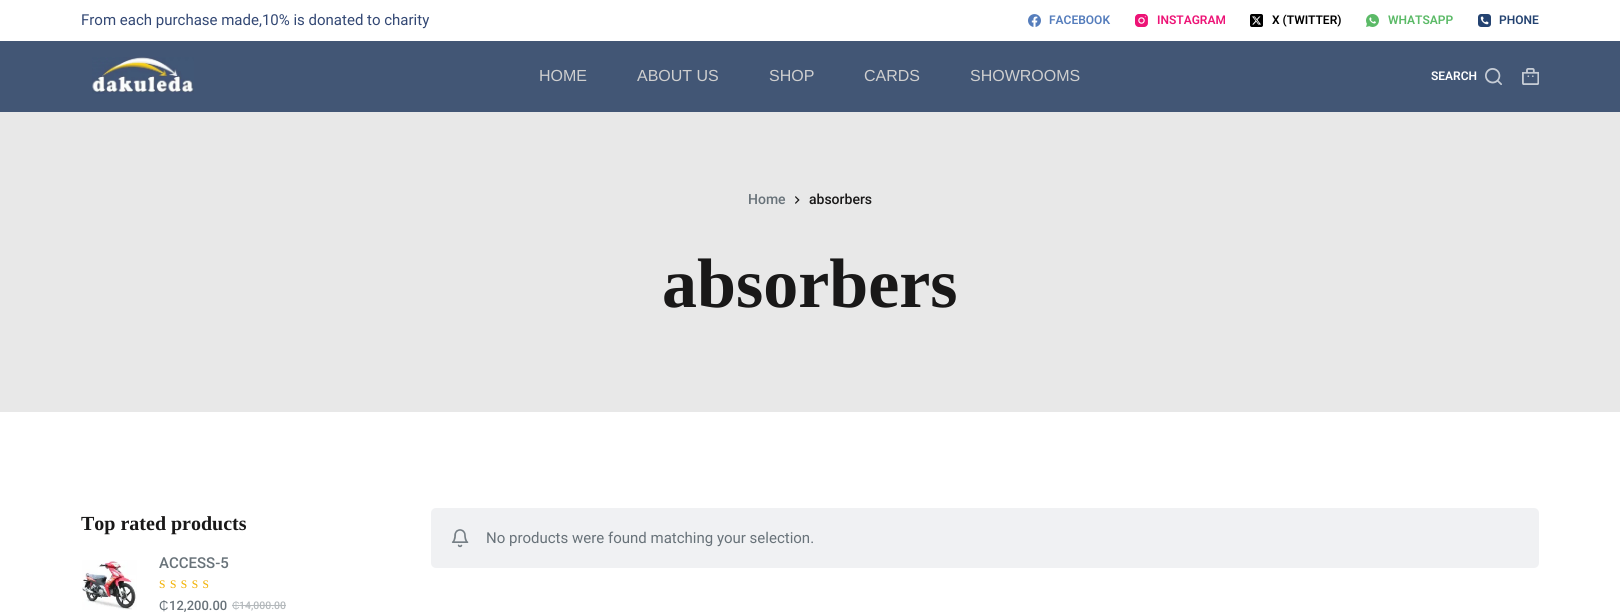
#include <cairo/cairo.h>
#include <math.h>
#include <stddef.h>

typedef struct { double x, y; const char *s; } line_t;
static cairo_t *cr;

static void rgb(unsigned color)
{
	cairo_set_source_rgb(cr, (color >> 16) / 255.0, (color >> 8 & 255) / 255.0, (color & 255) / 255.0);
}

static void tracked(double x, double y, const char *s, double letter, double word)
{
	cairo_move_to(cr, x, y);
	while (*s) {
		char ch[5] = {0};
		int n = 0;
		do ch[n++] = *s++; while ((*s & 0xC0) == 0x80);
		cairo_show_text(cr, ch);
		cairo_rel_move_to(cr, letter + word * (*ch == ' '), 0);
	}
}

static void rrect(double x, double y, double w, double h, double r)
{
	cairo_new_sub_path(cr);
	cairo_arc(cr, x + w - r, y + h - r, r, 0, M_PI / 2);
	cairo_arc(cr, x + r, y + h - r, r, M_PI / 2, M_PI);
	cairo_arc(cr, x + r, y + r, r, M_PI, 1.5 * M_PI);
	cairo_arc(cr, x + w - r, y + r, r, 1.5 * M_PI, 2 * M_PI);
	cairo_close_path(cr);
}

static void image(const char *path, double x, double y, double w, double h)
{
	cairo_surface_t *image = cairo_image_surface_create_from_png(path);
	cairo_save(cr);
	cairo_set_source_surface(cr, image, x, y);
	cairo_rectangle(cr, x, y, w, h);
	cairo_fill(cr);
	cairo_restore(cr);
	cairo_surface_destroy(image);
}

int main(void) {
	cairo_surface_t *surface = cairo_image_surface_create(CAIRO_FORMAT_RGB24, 1620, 612);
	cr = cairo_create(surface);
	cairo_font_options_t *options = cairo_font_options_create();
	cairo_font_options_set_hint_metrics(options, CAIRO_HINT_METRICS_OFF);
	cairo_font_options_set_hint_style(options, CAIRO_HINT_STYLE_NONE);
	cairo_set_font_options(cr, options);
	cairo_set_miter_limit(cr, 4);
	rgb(0xffffff);
	cairo_paint(cr);
	image("img/1.png", 1028, 14, 13, 13);
	image("img/2.png", 1135, 14, 13, 13);
	image("img/3.png", 1250, 14, 13, 13);
	image("img/4.png", 1366, 14, 13, 13);
	image("img/5.png", 1478, 14, 13, 13);
	rgb(0x425675);
	cairo_rectangle(cr, 0, 41, 1620, 71);
	cairo_fill(cr);
	image("img/6.png", 92, 57, 102, 37);
	image("img/7.png", 1485, 68, 17, 17);
	image("img/8.png", 1522, 68, 17, 17);
	rgb(0xe8e8e8);
	cairo_rectangle(cr, 0, 112, 1620, 300);
	cairo_fill(cr);
	image("img/9.png", 795, 196, 5, 8);
	image("img/10.png", 82, 560, 55, 50);
	rgb(0xb4b9bc);
	cairo_rectangle(cr, 232, 605, 7, 1);
	cairo_fill(cr);
	cairo_rectangle(cr, 239, 605, 47, 1);
	cairo_fill(cr);
	rgb(0xf0f1f3);
	rrect(431, 508, 1108, 60, 5);
	cairo_fill(cr);
	image("img/11.png", 451, 529, 18, 19);
	cairo_select_font_face(cr, "Roboto", CAIRO_FONT_SLANT_NORMAL, CAIRO_FONT_WEIGHT_NORMAL);
	cairo_set_font_size(cr, 15);
	rgb(0x334874);
	cairo_move_to(cr, 81, 25);
	cairo_show_text(cr, "From each purchase made,10% is donated to charity");
	cairo_select_font_face(cr, "Roboto SemiBold", CAIRO_FONT_SLANT_NORMAL, CAIRO_FONT_WEIGHT_NORMAL);
	cairo_set_font_size(cr, 12);
	rgb(0x557dbc);
	cairo_move_to(cr, 1049, 24);
	cairo_show_text(cr, "FACEBOOK");
	rgb(0xed1376);
	cairo_move_to(cr, 1157, 24);
	cairo_show_text(cr, "INSTAGRAM");
	rgb(0x000000);
	cairo_move_to(cr, 1272, 24);
	cairo_show_text(cr, "X (TWITTER)");
	rgb(0x5bba67);
	cairo_move_to(cr, 1388, 24);
	cairo_show_text(cr, "WHATSAPP");
	rgb(0x244371);
	cairo_move_to(cr, 1499, 24);
	cairo_show_text(cr, "PHONE");
	cairo_select_font_face(cr, "Liberation Sans", CAIRO_FONT_SLANT_NORMAL, CAIRO_FONT_WEIGHT_NORMAL);
	cairo_set_font_size(cr, 16);
	rgb(0xcfcfcf);
	{
		static const line_t items[] = {
			{539, 81, "HOME"},
			{637, 81, "ABOUT US"},
			{769, 81, "SHOP"},
			{864, 81, "CARDS"},
			{970, 81, "SHOWROOMS"},
		};
		for (size_t i = 0; i < sizeof items / sizeof *items; i++) {
			cairo_move_to(cr, items[i].x, items[i].y);
			cairo_show_text(cr, items[i].s);
		}
	}
	cairo_select_font_face(cr, "Roboto SemiBold", CAIRO_FONT_SLANT_NORMAL, CAIRO_FONT_WEIGHT_NORMAL);
	cairo_set_font_size(cr, 12);
	rgb(0xffffff);
	cairo_move_to(cr, 1431, 80);
	cairo_show_text(cr, "SEARCH");
	cairo_select_font_face(cr, "Roboto Medium", CAIRO_FONT_SLANT_NORMAL, CAIRO_FONT_WEIGHT_NORMAL);
	cairo_set_font_size(cr, 14);
	rgb(0x687279);
	cairo_move_to(cr, 748, 204);
	cairo_show_text(cr, "Home");
	rgb(0x191818);
	cairo_move_to(cr, 809, 204);
	cairo_show_text(cr, "absorbers");
	cairo_select_font_face(cr, "Liberation Serif", CAIRO_FONT_SLANT_NORMAL, CAIRO_FONT_WEIGHT_BOLD);
	cairo_set_font_size(cr, 70);
	cairo_move_to(cr, 662, 307);
	cairo_show_text(cr, "absorbers");
	cairo_set_font_size(cr, 20);
	cairo_move_to(cr, 81, 530);
	cairo_show_text(cr, "Top rated products");
	cairo_select_font_face(cr, "Roboto Medium", CAIRO_FONT_SLANT_NORMAL, CAIRO_FONT_WEIGHT_NORMAL);
	cairo_set_font_size(cr, 15);
	rgb(0x687279);
	cairo_move_to(cr, 159, 568);
	cairo_show_text(cr, "ACCESS-5");
	cairo_select_font_face(cr, "Liberation Serif", CAIRO_FONT_SLANT_NORMAL, CAIRO_FONT_WEIGHT_NORMAL);
	cairo_set_font_size(cr, 11.5);
	rgb(0xf9dfcc);
	tracked(159, 588, "SSSSS", 4.5, 0);
	rgb(0xf2b705);
	tracked(159, 588, "SSSSS", 4.5, 0);
	cairo_select_font_face(cr, "Liberation Sans", CAIRO_FONT_SLANT_NORMAL, CAIRO_FONT_WEIGHT_NORMAL);
	cairo_set_font_size(cr, 13);
	rgb(0x687279);
	cairo_move_to(cr, 159, 610);
	cairo_show_text(cr, "₵");
	cairo_select_font_face(cr, "Roboto Medium", CAIRO_FONT_SLANT_NORMAL, CAIRO_FONT_WEIGHT_NORMAL);
	cairo_move_to(cr, 169, 610);
	cairo_show_text(cr, "12,200.00");
	cairo_select_font_face(cr, "Liberation Sans", CAIRO_FONT_SLANT_NORMAL, CAIRO_FONT_WEIGHT_NORMAL);
	cairo_set_font_size(cr, 10.5);
	rgb(0xb4b9bc);
	cairo_move_to(cr, 232, 609);
	cairo_show_text(cr, "₵");
	cairo_select_font_face(cr, "Roboto Medium", CAIRO_FONT_SLANT_NORMAL, CAIRO_FONT_WEIGHT_NORMAL);
	cairo_move_to(cr, 239, 609);
	cairo_show_text(cr, "14,000.00");
	cairo_select_font_face(cr, "Roboto", CAIRO_FONT_SLANT_NORMAL, CAIRO_FONT_WEIGHT_NORMAL);
	cairo_set_font_size(cr, 15);
	rgb(0x687279);
	cairo_move_to(cr, 486, 543);
	cairo_show_text(cr, "No products were found matching your selection.");
	cairo_surface_write_to_png(surface, "page.png");
	cairo_font_options_destroy(options);
	cairo_destroy(cr);
	cairo_surface_destroy(surface);
	return 0;
}
